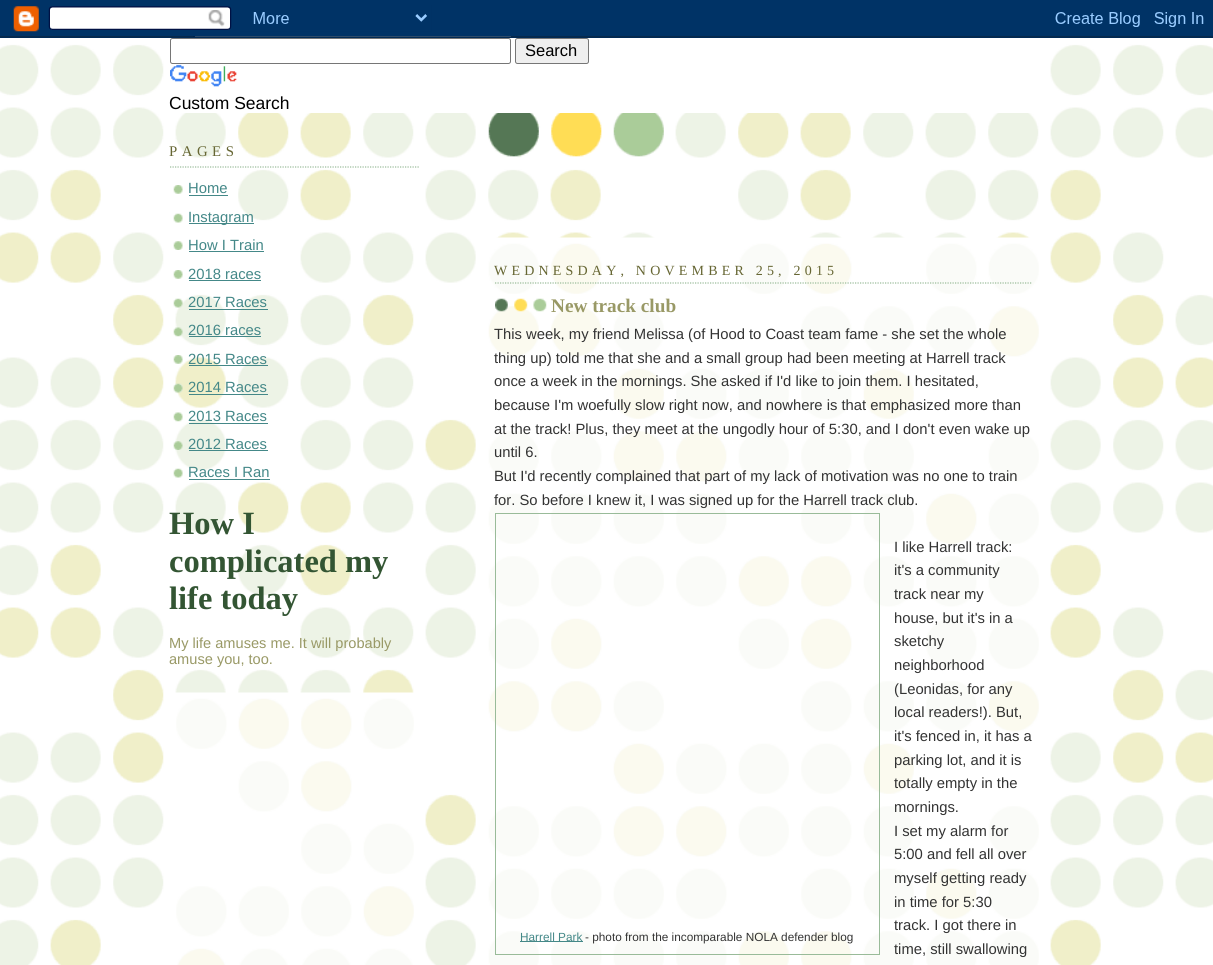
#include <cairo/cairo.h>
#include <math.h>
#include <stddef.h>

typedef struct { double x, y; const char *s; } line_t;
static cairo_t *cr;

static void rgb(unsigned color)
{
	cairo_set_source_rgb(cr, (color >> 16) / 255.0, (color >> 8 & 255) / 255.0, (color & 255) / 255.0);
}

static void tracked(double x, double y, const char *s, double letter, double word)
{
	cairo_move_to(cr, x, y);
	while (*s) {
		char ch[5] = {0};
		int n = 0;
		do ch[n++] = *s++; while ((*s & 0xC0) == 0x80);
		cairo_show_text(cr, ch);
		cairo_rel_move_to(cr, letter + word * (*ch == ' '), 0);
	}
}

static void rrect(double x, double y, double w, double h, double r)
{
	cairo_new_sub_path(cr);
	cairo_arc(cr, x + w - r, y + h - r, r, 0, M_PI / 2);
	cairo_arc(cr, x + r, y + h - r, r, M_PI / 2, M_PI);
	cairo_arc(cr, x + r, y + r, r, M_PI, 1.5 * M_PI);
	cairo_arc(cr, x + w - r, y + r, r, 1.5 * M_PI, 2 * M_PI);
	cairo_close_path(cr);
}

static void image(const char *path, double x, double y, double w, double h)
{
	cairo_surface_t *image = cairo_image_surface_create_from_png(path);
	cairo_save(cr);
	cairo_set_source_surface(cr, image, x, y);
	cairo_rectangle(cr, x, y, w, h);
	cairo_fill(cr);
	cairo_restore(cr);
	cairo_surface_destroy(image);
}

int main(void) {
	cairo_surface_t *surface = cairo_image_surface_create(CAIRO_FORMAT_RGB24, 1213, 965);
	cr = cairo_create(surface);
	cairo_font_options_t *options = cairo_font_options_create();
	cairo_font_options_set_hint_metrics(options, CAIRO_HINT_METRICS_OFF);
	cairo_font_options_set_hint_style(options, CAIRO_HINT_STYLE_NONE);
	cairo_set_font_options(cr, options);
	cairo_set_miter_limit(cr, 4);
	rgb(0xffffff);
	cairo_paint(cr);
	image("img/1.png", 0, 36, 1213, 929);
	image("img/2.png", 0, 0, 1213, 38);
	image("img/3.png", 488, 113, 176, 45);
	rgb(0xffffff);
	cairo_rectangle(cr, 175, 44, 864, 69);
	cairo_fill(cr);
	rrect(170.5, 38.5, 340, 25, 2);
	rgb(0x767676);
	cairo_set_line_width(cr, 1);
	cairo_stroke(cr);
	rgb(0xefefef);
	rrect(515.5, 38.5, 73, 25, 2);
	cairo_fill_preserve(cr);
	rgb(0x767676);
	cairo_stroke(cr);
	image("img/4.png", 170, 64, 67, 23);
	cairo_new_path(cr);
	cairo_move_to(cr, 170, 167);
	cairo_line_to(cr, 420, 167);
	rgb(0x99bb99);
	cairo_set_line_width(cr, 1.2);
	cairo_set_dash(cr, (double[]){1.25, 1.25}, 2, 0);
	cairo_stroke(cr);
	image("img/5.png", 173, 185, 10, 9);
	rgb(0x448888);
	cairo_rectangle(cr, 189, 195, 39, 1);
	cairo_fill(cr);
	image("img/6.png", 173, 213, 10, 10);
	cairo_rectangle(cr, 189, 223, 65, 1);
	cairo_fill(cr);
	image("img/7.png", 173, 241, 10, 9);
	cairo_rectangle(cr, 189, 251, 75, 1);
	cairo_fill(cr);
	image("img/5.png", 173, 270, 10, 9);
	cairo_rectangle(cr, 189, 280, 72, 1);
	cairo_fill(cr);
	image("img/8.png", 173, 298, 10, 10);
	cairo_rectangle(cr, 189, 309, 79, 1);
	cairo_fill(cr);
	image("img/9.png", 173, 327, 10, 10);
	cairo_rectangle(cr, 189, 336, 72, 1);
	cairo_fill(cr);
	image("img/10.png", 173, 355, 10, 9);
	cairo_rectangle(cr, 189, 365, 79, 1);
	cairo_fill(cr);
	image("img/11.png", 173, 383, 10, 10);
	cairo_rectangle(cr, 189, 394, 79, 1);
	cairo_fill(cr);
	image("img/12.png", 173, 412, 10, 10);
	cairo_rectangle(cr, 189, 423, 79, 1);
	cairo_fill(cr);
	image("img/13.png", 173, 441, 10, 9);
	cairo_rectangle(cr, 189, 450, 79, 1);
	cairo_fill(cr);
	image("img/6.png", 173, 468, 10, 10);
	cairo_rectangle(cr, 189, 479, 81, 1);
	cairo_fill(cr);
	image("img/14.png", 175, 692, 239, 273);
	image("img/15.png", 488, 237, 551, 728);
	cairo_new_path(cr);
	cairo_move_to(cr, 495, 283);
	cairo_line_to(cr, 1032.5, 283);
	rgb(0x99bb99);
	cairo_stroke(cr);
	image("img/16.png", 495, 298, 52, 14);
	cairo_rectangle(cr, 495.5, 513.5, 384, 441);
	cairo_set_line_width(cr, 1);
	cairo_set_dash(cr, NULL, 0, 0);
	cairo_stroke(cr);
	rgb(0x448888);
	cairo_rectangle(cr, 520, 941, 63, 1);
	cairo_fill(cr);
	cairo_select_font_face(cr, "Liberation Sans", CAIRO_FONT_SLANT_NORMAL, CAIRO_FONT_WEIGHT_NORMAL);
	cairo_set_font_size(cr, 16.5);
	rgb(0x000000);
	cairo_move_to(cr, 525, 56);
	cairo_show_text(cr, "Search");
	cairo_set_font_size(cr, 17.5);
	cairo_move_to(cr, 169, 109);
	cairo_show_text(cr, "Custom Search");
	cairo_select_font_face(cr, "Liberation Serif", CAIRO_FONT_SLANT_NORMAL, CAIRO_FONT_WEIGHT_NORMAL);
	cairo_set_font_size(cr, 14.8);
	rgb(0x666633);
	tracked(169, 156, "PAGES", 4.5, 0);
	cairo_select_font_face(cr, "Liberation Sans", CAIRO_FONT_SLANT_NORMAL, CAIRO_FONT_WEIGHT_NORMAL);
	rgb(0x448888);
	{
		static const line_t items[] = {
			{188, 193, "Home"},
			{188, 222, "Instagram"},
			{188, 250, "How I Train"},
			{188, 279, "2018 races"},
			{188, 307, "2017 Races"},
			{188, 335, "2016 races"},
			{188, 364, "2015 Races"},
			{188, 392, "2014 Races"},
			{188, 421, "2013 Races"},
			{188, 449, "2012 Races"},
			{188, 477, "Races I Ran"},
		};
		for (size_t i = 0; i < sizeof items / sizeof *items; i++) {
			cairo_move_to(cr, items[i].x, items[i].y);
			cairo_show_text(cr, items[i].s);
		}
	}
	cairo_select_font_face(cr, "Liberation Serif", CAIRO_FONT_SLANT_NORMAL, CAIRO_FONT_WEIGHT_BOLD);
	cairo_set_font_size(cr, 32.5);
	rgb(0x335533);
	{
		static const line_t items[] = {
			{169, 534, "How I"},
			{169, 572, "complicated my"},
			{169, 609, "life today"},
		};
		for (size_t i = 0; i < sizeof items / sizeof *items; i++) {
			cairo_move_to(cr, items[i].x, items[i].y);
			cairo_show_text(cr, items[i].s);
		}
	}
	cairo_select_font_face(cr, "Liberation Sans", CAIRO_FONT_SLANT_NORMAL, CAIRO_FONT_WEIGHT_NORMAL);
	cairo_set_font_size(cr, 14.6);
	rgb(0x999966);
	cairo_move_to(cr, 169, 648);
	cairo_show_text(cr, "My life amuses me. It will probably");
	cairo_move_to(cr, 169, 664);
	cairo_show_text(cr, "amuse you, too.");
	cairo_select_font_face(cr, "Liberation Serif", CAIRO_FONT_SLANT_NORMAL, CAIRO_FONT_WEIGHT_NORMAL);
	cairo_set_font_size(cr, 14);
	rgb(0x666633);
	tracked(494, 275, "WEDNESDAY, NOVEMBER 25, 2015", 4.2, 0);
	cairo_select_font_face(cr, "Liberation Serif", CAIRO_FONT_SLANT_NORMAL, CAIRO_FONT_WEIGHT_BOLD);
	cairo_set_font_size(cr, 19.25);
	rgb(0x999966);
	cairo_move_to(cr, 551, 312);
	cairo_show_text(cr, "New track club");
	cairo_select_font_face(cr, "Liberation Sans", CAIRO_FONT_SLANT_NORMAL, CAIRO_FONT_WEIGHT_NORMAL);
	cairo_set_font_size(cr, 14.8);
	rgb(0x333333);
	{
		static const line_t items[] = {
			{494, 339, "This week, my friend Melissa (of Hood to Coast team fame - she set the whole"},
			{494, 363, "thing up) told me that she and a small group had been meeting at Harrell track"},
			{494, 386, "once a week in the mornings. She asked if I'd like to join them. I hesitated,"},
			{494, 410, "because I'm woefully slow right now, and nowhere is that emphasized more than"},
			{494, 434, "at the track! Plus, they meet at the ungodly hour of 5:30, and I don't even wake up"},
			{494, 457, "until 6."},
			{494, 481, "But I'd recently complained that part of my lack of motivation was no one to train"},
			{494, 505, "for. So before I knew it, I was signed up for the Harrell track club."},
			{894, 552, "I like Harrell track:"},
			{894, 575, "it's a community"},
			{894, 599, "track near my"},
			{894, 623, "house, but it's in a"},
			{894, 646, "sketchy"},
			{894, 670, "neighborhood"},
			{894, 694, "(Leonidas, for any"},
			{894, 717, "local readers!). But,"},
			{894, 741, "it's fenced in, it has a"},
			{894, 765, "parking lot, and it is"},
			{894, 788, "totally empty in the"},
			{894, 812, "mornings."},
			{894, 836, "I set my alarm for"},
			{894, 859, "5:00 and fell all over"},
			{894, 883, "myself getting ready"},
			{894, 907, "in time for 5:30"},
			{894, 930, "track. I got there in"},
		};
		for (size_t i = 0; i < sizeof items / sizeof *items; i++) {
			cairo_move_to(cr, items[i].x, items[i].y);
			cairo_show_text(cr, items[i].s);
		}
	}
	cairo_set_font_size(cr, 11.8);
	rgb(0x448888);
	cairo_move_to(cr, 520, 941);
	cairo_show_text(cr, "Harrell Park");
	rgb(0x333333);
	cairo_move_to(cr, 585, 941);
	cairo_show_text(cr, "- photo from the incomparable NOLA defender blog");
	cairo_set_font_size(cr, 14.8);
	cairo_move_to(cr, 894, 954);
	cairo_show_text(cr, "time, still swallowing");
	cairo_surface_write_to_png(surface, "page.png");
	cairo_font_options_destroy(options);
	cairo_destroy(cr);
	cairo_surface_destroy(surface);
	return 0;
}
